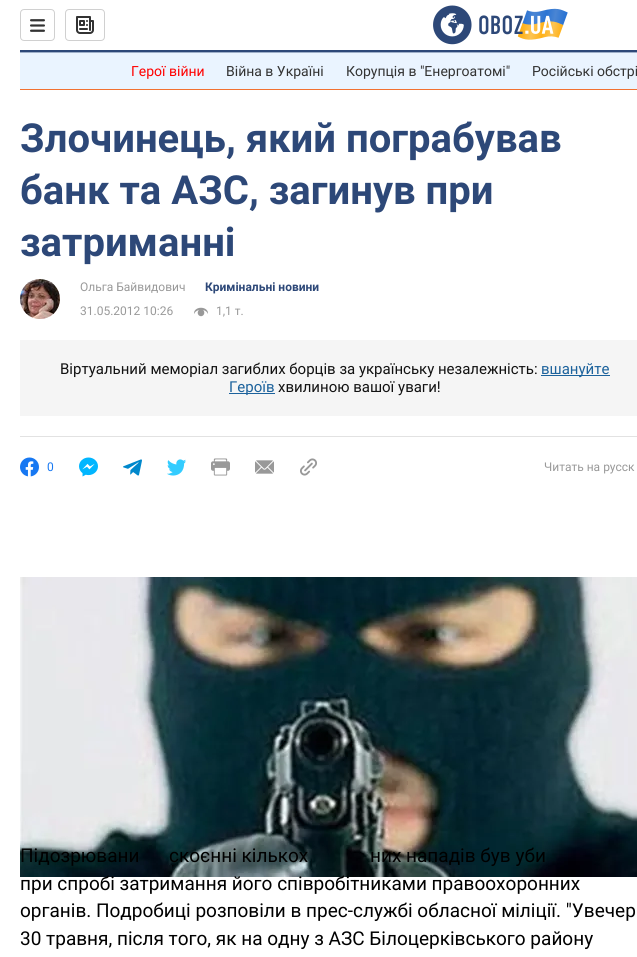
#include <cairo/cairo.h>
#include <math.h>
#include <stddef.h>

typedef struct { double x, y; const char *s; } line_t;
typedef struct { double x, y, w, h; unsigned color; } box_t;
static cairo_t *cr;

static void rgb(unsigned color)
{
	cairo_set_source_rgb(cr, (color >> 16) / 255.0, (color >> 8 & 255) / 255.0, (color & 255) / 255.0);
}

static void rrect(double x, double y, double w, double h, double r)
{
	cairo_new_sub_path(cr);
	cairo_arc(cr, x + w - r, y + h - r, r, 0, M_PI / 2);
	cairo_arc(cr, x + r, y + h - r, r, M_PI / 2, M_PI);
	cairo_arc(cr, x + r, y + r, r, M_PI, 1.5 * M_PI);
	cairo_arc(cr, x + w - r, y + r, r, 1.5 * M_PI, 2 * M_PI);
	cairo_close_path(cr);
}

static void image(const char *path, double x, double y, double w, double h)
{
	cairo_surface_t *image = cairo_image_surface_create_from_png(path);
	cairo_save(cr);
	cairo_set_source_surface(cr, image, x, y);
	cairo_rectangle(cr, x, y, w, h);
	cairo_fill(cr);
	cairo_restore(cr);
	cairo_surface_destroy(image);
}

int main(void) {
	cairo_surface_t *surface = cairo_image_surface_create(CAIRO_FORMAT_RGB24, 637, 957);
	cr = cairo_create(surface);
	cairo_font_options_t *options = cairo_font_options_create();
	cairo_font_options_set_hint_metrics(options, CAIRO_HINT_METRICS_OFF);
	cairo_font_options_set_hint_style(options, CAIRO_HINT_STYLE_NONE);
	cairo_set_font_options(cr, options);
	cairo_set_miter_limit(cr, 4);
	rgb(0xffffff);
	cairo_paint(cr);
	rgb(0x2d4878);
	cairo_rectangle(cr, 20, 50, 617, 2);
	cairo_fill(cr);
	rrect(20.5, 9.5, 34, 31, 3.5);
	rgb(0xd0d0d0);
	cairo_set_line_width(cr, 1);
	cairo_stroke(cr);
	image("img/1.png", 30, 19, 15, 13);
	rrect(65.5, 9.5, 39, 31, 3.5);
	cairo_stroke(cr);
	image("img/2.png", 76, 16, 18, 18);
	image("img/3.png", 433, 5, 135, 40);
	{
		static const box_t items[] = {
			{20, 53, 617, 36, 0xeaf4ff},
			{20, 52, 617, 1, 0x9eafc9},
			{20, 89, 617, 1, 0xf17132},
			{20, 436, 617, 1, 0xe2e2e2},
		};
		for (size_t i = 0; i < sizeof items / sizeof *items; i++) {
			rgb(items[i].color);
			cairo_rectangle(cr, items[i].x, items[i].y, items[i].w, items[i].h);
			cairo_fill(cr);
		}
	}
	image("img/4.png", 20, 279, 40, 40);
	image("img/5.png", 194, 307, 14, 10);
	{
		static const box_t items[] = {
			{20, 340, 617, 76, 0xf5f5f5},
			{541, 375, 69, 1, 0x1c629c},
			{229, 393, 46, 1, 0x1c629c},
		};
		for (size_t i = 0; i < sizeof items / sizeof *items; i++) {
			rgb(items[i].color);
			cairo_rectangle(cr, items[i].x, items[i].y, items[i].w, items[i].h);
			cairo_fill(cr);
		}
	}
	image("img/6.png", 20, 457, 19, 20);
	image("img/7.png", 79, 457, 19, 20);
	image("img/8.png", 123, 459, 19, 17);
	image("img/9.png", 167, 459, 19, 17);
	image("img/10.png", 211, 458, 19, 18);
	image("img/11.png", 255, 460, 19, 14);
	image("img/12.png", 300, 458, 17, 18);
	image("img/13.png", 20, 577, 617, 300);
	cairo_select_font_face(cr, "Roboto", CAIRO_FONT_SLANT_NORMAL, CAIRO_FONT_WEIGHT_NORMAL);
	cairo_set_font_size(cr, 14);
	rgb(0xff0000);
	cairo_move_to(cr, 131, 76);
	cairo_show_text(cr, "Герої війни");
	rgb(0x333333);
	{
		static const line_t items[] = {
			{226, 76, "Війна в Україні"},
			{346, 76, "Корупція в \"Енергоатомі\""},
			{532, 76, "Російські обстрі"},
		};
		for (size_t i = 0; i < sizeof items / sizeof *items; i++) {
			cairo_move_to(cr, items[i].x, items[i].y);
			cairo_show_text(cr, items[i].s);
		}
	}
	cairo_select_font_face(cr, "Roboto", CAIRO_FONT_SLANT_NORMAL, CAIRO_FONT_WEIGHT_BOLD);
	cairo_set_font_size(cr, 40);
	rgb(0x2d4878);
	{
		static const line_t items[] = {
			{20, 152, "Злочинець, який пограбував"},
			{20, 204, "банк та АЗС, загинув при"},
			{20, 256, "затриманні"},
		};
		for (size_t i = 0; i < sizeof items / sizeof *items; i++) {
			cairo_move_to(cr, items[i].x, items[i].y);
			cairo_show_text(cr, items[i].s);
		}
	}
	cairo_select_font_face(cr, "Roboto", CAIRO_FONT_SLANT_NORMAL, CAIRO_FONT_WEIGHT_NORMAL);
	cairo_set_font_size(cr, 12);
	rgb(0x999999);
	cairo_move_to(cr, 80, 291);
	cairo_show_text(cr, "Ольга Байвидович");
	cairo_select_font_face(cr, "Roboto", CAIRO_FONT_SLANT_NORMAL, CAIRO_FONT_WEIGHT_BOLD);
	rgb(0x2d4878);
	cairo_move_to(cr, 205, 291);
	cairo_show_text(cr, "Кримінальні новини");
	cairo_select_font_face(cr, "Roboto", CAIRO_FONT_SLANT_NORMAL, CAIRO_FONT_WEIGHT_NORMAL);
	rgb(0x999999);
	cairo_move_to(cr, 80, 315);
	cairo_show_text(cr, "31.05.2012 10:26");
	cairo_move_to(cr, 216, 315);
	cairo_show_text(cr, "1,1 т.");
	cairo_set_font_size(cr, 15);
	rgb(0x121212);
	cairo_move_to(cr, 60, 374);
	cairo_show_text(cr, "Віртуальний меморіал загиблих борців за українську незалежність:");
	rgb(0x1c629c);
	cairo_move_to(cr, 541, 374);
	cairo_show_text(cr, "вшануйте");
	cairo_move_to(cr, 229, 392);
	cairo_show_text(cr, "Героїв");
	rgb(0x121212);
	cairo_move_to(cr, 278, 392);
	cairo_show_text(cr, "хвилиною вашої уваги!");
	cairo_set_font_size(cr, 12);
	rgb(0x1778f2);
	cairo_move_to(cr, 47, 471);
	cairo_show_text(cr, "0");
	rgb(0x999999);
	cairo_move_to(cr, 544, 471);
	cairo_show_text(cr, "Читать на русск");
	cairo_set_font_size(cr, 19);
	rgb(0x000000);
	{
		static const line_t items[] = {
			{20, 862, "Підозрювани"},
			{169, 862, "скоєнні кількох"},
			{370, 862, "них нападів був уби"},
			{20, 890, "при спробі затримання його співробітниками правоохоронних"},
			{20, 917, "органів. Подробиці розповіли в прес-службі обласної міліції. \"Увечер"},
			{20, 945, "30 травня, після того, як на одну з АЗС Білоцерківського району"},
		};
		for (size_t i = 0; i < sizeof items / sizeof *items; i++) {
			cairo_move_to(cr, items[i].x, items[i].y);
			cairo_show_text(cr, items[i].s);
		}
	}
	cairo_surface_write_to_png(surface, "page.png");
	cairo_font_options_destroy(options);
	cairo_destroy(cr);
	cairo_surface_destroy(surface);
	return 0;
}
